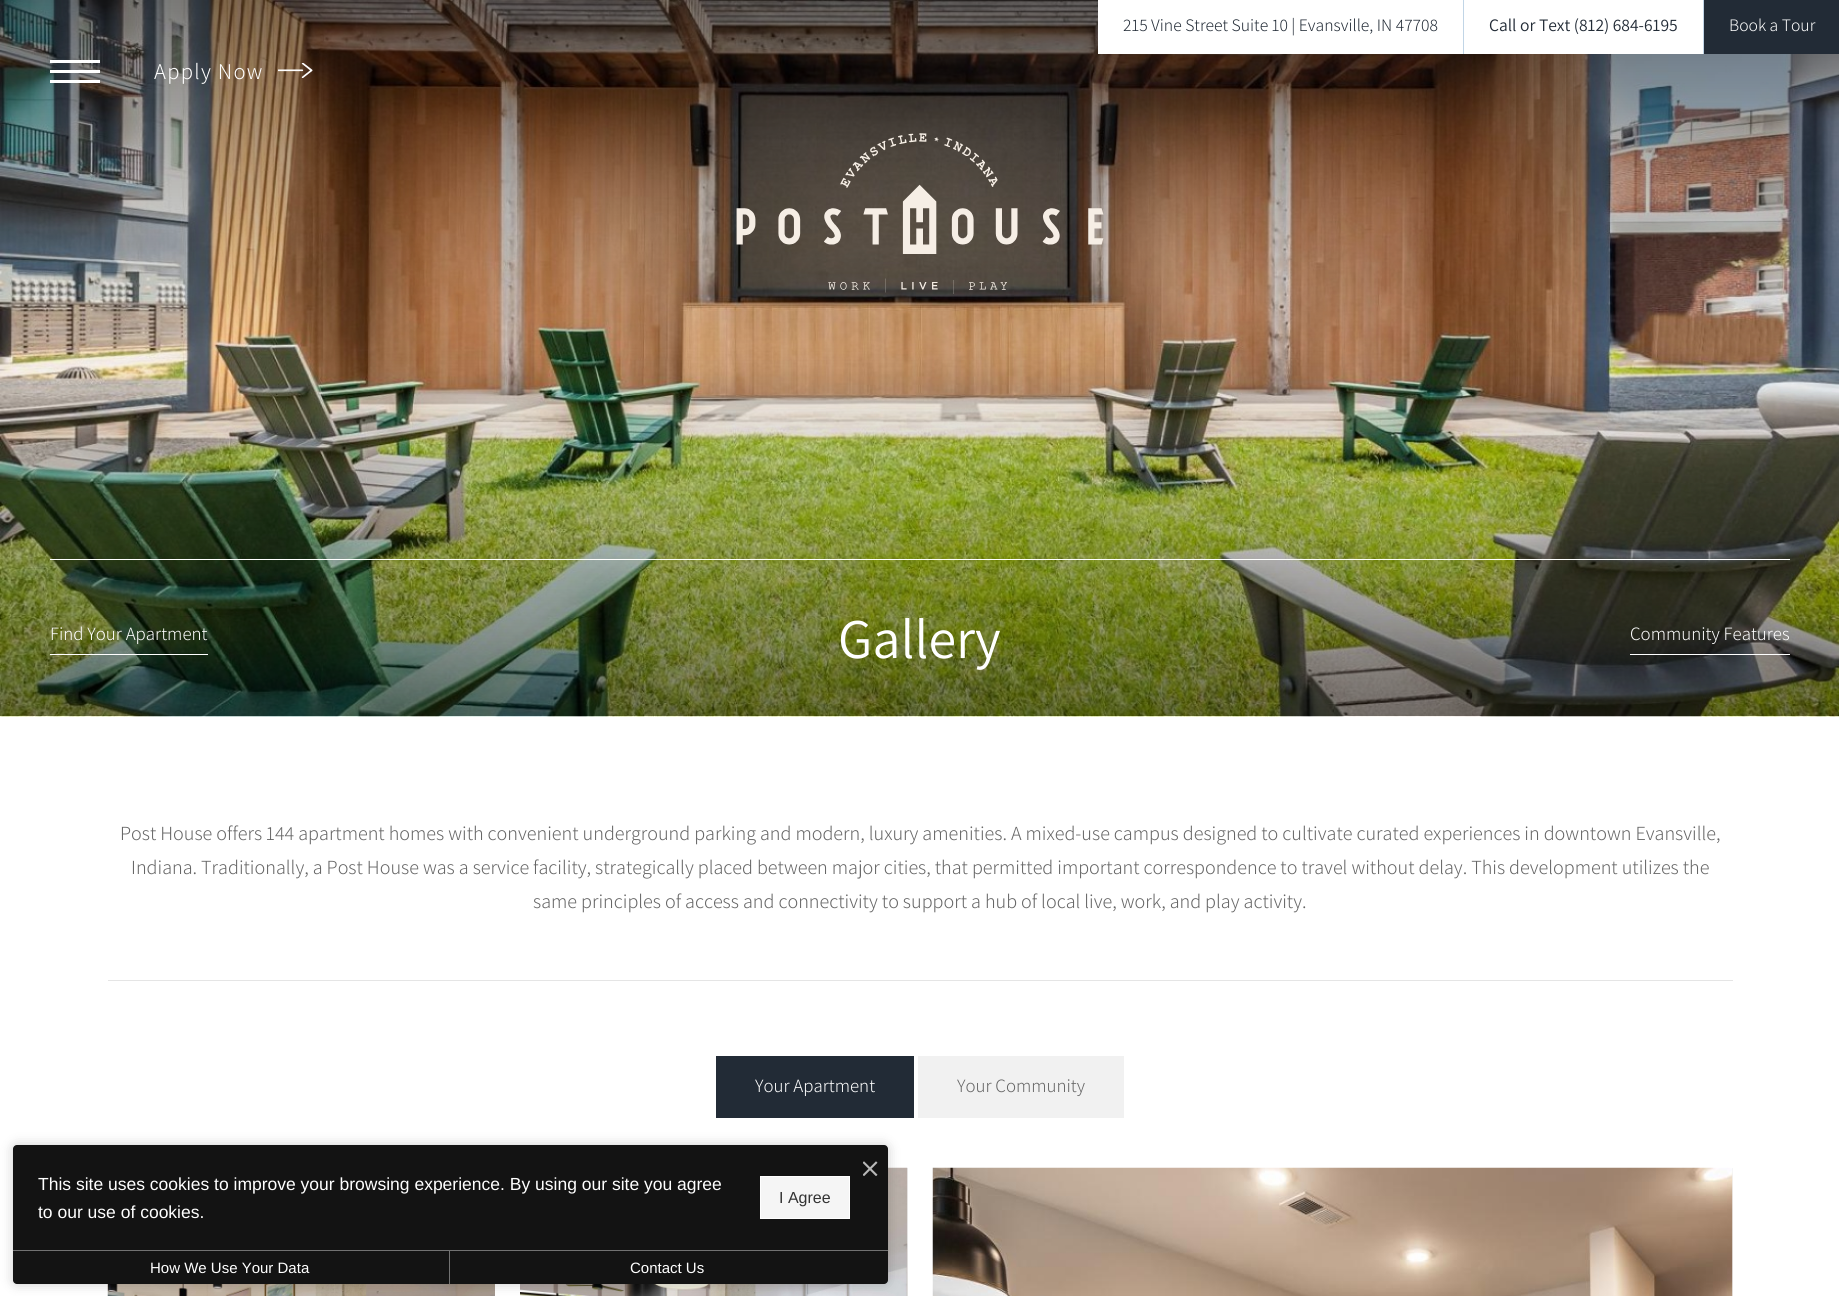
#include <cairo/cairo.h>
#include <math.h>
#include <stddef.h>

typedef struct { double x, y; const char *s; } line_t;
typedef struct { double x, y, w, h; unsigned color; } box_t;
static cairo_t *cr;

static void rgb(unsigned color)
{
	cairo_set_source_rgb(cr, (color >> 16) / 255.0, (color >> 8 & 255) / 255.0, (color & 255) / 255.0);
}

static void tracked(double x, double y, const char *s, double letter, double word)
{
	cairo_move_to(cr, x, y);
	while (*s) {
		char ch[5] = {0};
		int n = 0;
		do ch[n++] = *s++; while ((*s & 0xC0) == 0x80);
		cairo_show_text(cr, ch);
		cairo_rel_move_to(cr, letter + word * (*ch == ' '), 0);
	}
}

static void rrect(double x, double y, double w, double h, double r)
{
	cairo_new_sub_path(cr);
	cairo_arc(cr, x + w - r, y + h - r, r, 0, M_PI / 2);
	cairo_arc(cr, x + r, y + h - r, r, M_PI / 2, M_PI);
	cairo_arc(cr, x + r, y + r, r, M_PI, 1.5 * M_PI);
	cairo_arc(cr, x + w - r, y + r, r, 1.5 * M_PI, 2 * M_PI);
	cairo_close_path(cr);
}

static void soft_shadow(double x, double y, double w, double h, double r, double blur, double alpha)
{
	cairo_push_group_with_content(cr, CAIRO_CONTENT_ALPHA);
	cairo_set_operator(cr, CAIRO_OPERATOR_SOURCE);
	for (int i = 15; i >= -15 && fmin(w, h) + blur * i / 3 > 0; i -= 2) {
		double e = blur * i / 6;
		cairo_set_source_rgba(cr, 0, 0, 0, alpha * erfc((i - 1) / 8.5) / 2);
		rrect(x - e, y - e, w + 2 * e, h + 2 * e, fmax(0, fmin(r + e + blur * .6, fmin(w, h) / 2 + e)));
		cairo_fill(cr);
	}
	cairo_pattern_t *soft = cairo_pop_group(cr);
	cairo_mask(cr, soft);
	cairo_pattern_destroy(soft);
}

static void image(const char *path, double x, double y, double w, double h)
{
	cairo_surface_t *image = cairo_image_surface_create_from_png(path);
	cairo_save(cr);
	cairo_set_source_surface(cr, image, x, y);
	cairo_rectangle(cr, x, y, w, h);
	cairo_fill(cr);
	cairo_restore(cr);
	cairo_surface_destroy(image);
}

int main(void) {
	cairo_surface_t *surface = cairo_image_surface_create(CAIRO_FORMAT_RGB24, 1839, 1296);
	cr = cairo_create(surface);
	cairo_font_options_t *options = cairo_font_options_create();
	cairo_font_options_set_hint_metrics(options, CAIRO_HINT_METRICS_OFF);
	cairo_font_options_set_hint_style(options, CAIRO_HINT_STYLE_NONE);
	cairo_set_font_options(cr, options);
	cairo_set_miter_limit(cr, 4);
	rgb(0xffffff);
	cairo_paint(cr);
	image("img/3.png", 0, 716, 1839, 1);
	image("img/4.png", 0, 0, 1839, 717);
	{
		static const box_t items[] = {
			{1098, 0, 365, 54, 0xffffff},
			{1463, 0, 1, 54, 0xc1d5e6},
			{1464, 0, 239, 54, 0xffffff},
			{1703, 0, 1, 54, 0xc1d5e6},
			{1704, 0, 135, 54, 0x222b36},
			{50, 60, 50, 3, 0xffffff},
			{50, 70, 50, 3, 0xffffff},
			{50, 80, 50, 3, 0xffffff},
		};
		for (size_t i = 0; i < sizeof items / sizeof *items; i++) {
			rgb(items[i].color);
			cairo_rectangle(cr, items[i].x, items[i].y, items[i].w, items[i].h);
			cairo_fill(cr);
		}
	}
	image("img/1.png", 278, 63, 35, 15);
	image("img/2.png", 736, 133, 368, 161);
	{
		static const box_t items[] = {
			{50, 559, 1740, 1, 0xffffff},
			{50, 654, 158, 1, 0xffffff},
			{1630, 654, 160, 1, 0xffffff},
			{108, 980, 1625, 1, 0xe5e5e5},
			{716, 1056, 198, 62, 0x222b36},
			{918, 1056, 206, 62, 0xf1f1f1},
		};
		for (size_t i = 0; i < sizeof items / sizeof *items; i++) {
			rgb(items[i].color);
			cairo_rectangle(cr, items[i].x, items[i].y, items[i].w, items[i].h);
			cairo_fill(cr);
		}
	}
	image("img/5.png", 107, 1284, 388, 12);
	rgb(0xf2f2f2);
	cairo_rectangle(cr, 907, 1168, 1, 128);
	cairo_fill(cr);
	image("img/6.png", 520, 1167, 388, 129);
	rgb(0xf3f3f3);
	cairo_rectangle(cr, 1732, 1168, 1, 128);
	cairo_fill(cr);
	image("img/7.png", 932, 1167, 801, 129);
	rgb(0x000000);
	soft_shadow(13, 1145, 875, 139, 4, 6, 0.2);
	rgb(0x131313);
	rrect(13, 1145, 875, 139, 4);
	cairo_fill(cr);
	image("img/8.png", 863, 1161, 15, 15);
	rgb(0xf5f5f5);
	cairo_rectangle(cr, 760.5, 1176.5, 89, 42);
	cairo_fill_preserve(cr);
	rgb(0xffffff);
	cairo_set_line_width(cr, 1);
	cairo_stroke(cr);
	rgb(0x717171);
	cairo_rectangle(cr, 13, 1250, 875, 1);
	cairo_fill(cr);
	cairo_rectangle(cr, 449, 1251, 1, 33);
	cairo_fill(cr);
	cairo_select_font_face(cr, "Assistant Light", CAIRO_FONT_SLANT_NORMAL, CAIRO_FONT_WEIGHT_NORMAL);
	cairo_set_font_size(cr, 17.5);
	rgb(0x222b36);
	cairo_move_to(cr, 1123, 31);
	cairo_show_text(cr, "215 Vine Street Suite 10 | Evansville, IN 47708");
	cairo_select_font_face(cr, "Assistant", CAIRO_FONT_SLANT_NORMAL, CAIRO_FONT_WEIGHT_NORMAL);
	cairo_move_to(cr, 1489, 31);
	cairo_show_text(cr, "Call or Text (812) 684-6195");
	cairo_select_font_face(cr, "Assistant Light", CAIRO_FONT_SLANT_NORMAL, CAIRO_FONT_WEIGHT_NORMAL);
	rgb(0xffffff);
	cairo_move_to(cr, 1729, 31);
	cairo_show_text(cr, "Book a Tour");
	cairo_set_font_size(cr, 22.5);
	tracked(154, 79, "Apply Now", 1.25, 0);
	cairo_select_font_face(cr, "Assistant", CAIRO_FONT_SLANT_NORMAL, CAIRO_FONT_WEIGHT_NORMAL);
	cairo_set_font_size(cr, 56);
	cairo_move_to(cr, 838, 658);
	cairo_show_text(cr, "Gallery");
	cairo_select_font_face(cr, "Assistant Light", CAIRO_FONT_SLANT_NORMAL, CAIRO_FONT_WEIGHT_NORMAL);
	cairo_set_font_size(cr, 18.75);
	cairo_move_to(cr, 50, 640);
	cairo_show_text(cr, "Find Your Apartment");
	cairo_move_to(cr, 1630, 640);
	cairo_show_text(cr, "Community Features");
	cairo_set_font_size(cr, 20);
	rgb(0x666666);
	{
		static const line_t items[] = {
			{120, 840, "Post House offers 144 apartment homes with convenient underground parking and modern, luxury amenities. A mixed-use campus designed to cultivate curated experiences in downtown Evansville,"},
			{131, 874, "Indiana. Traditionally, a Post House was a service facility, strategically placed between major cities, that permitted important correspondence to travel without delay. This development utilizes the"},
			{533, 908, "same principles of access and connectivity to support a hub of local live, work, and play activity."},
		};
		for (size_t i = 0; i < sizeof items / sizeof *items; i++) {
			cairo_move_to(cr, items[i].x, items[i].y);
			cairo_show_text(cr, items[i].s);
		}
	}
	cairo_set_font_size(cr, 18.75);
	rgb(0xffffff);
	cairo_move_to(cr, 755, 1092);
	cairo_show_text(cr, "Your Apartment");
	rgb(0x666666);
	cairo_move_to(cr, 957, 1092);
	cairo_show_text(cr, "Your Community");
	cairo_select_font_face(cr, "Liberation Sans", CAIRO_FONT_SLANT_NORMAL, CAIRO_FONT_WEIGHT_NORMAL);
	cairo_set_font_size(cr, 17.5);
	rgb(0xffffff);
	cairo_move_to(cr, 38, 1190);
	cairo_show_text(cr, "This site uses cookies to improve your browsing experience. By using our site you agree");
	cairo_move_to(cr, 38, 1218);
	cairo_show_text(cr, "to our use of cookies.");
	cairo_set_font_size(cr, 16);
	rgb(0x333333);
	cairo_move_to(cr, 779, 1203);
	cairo_show_text(cr, "I Agree");
	cairo_set_font_size(cr, 15);
	rgb(0xffffff);
	cairo_move_to(cr, 150, 1273);
	cairo_show_text(cr, "How We Use Your Data");
	cairo_move_to(cr, 630, 1273);
	cairo_show_text(cr, "Contact Us");
	cairo_surface_write_to_png(surface, "page.png");
	cairo_font_options_destroy(options);
	cairo_destroy(cr);
	cairo_surface_destroy(surface);
	return 0;
}
